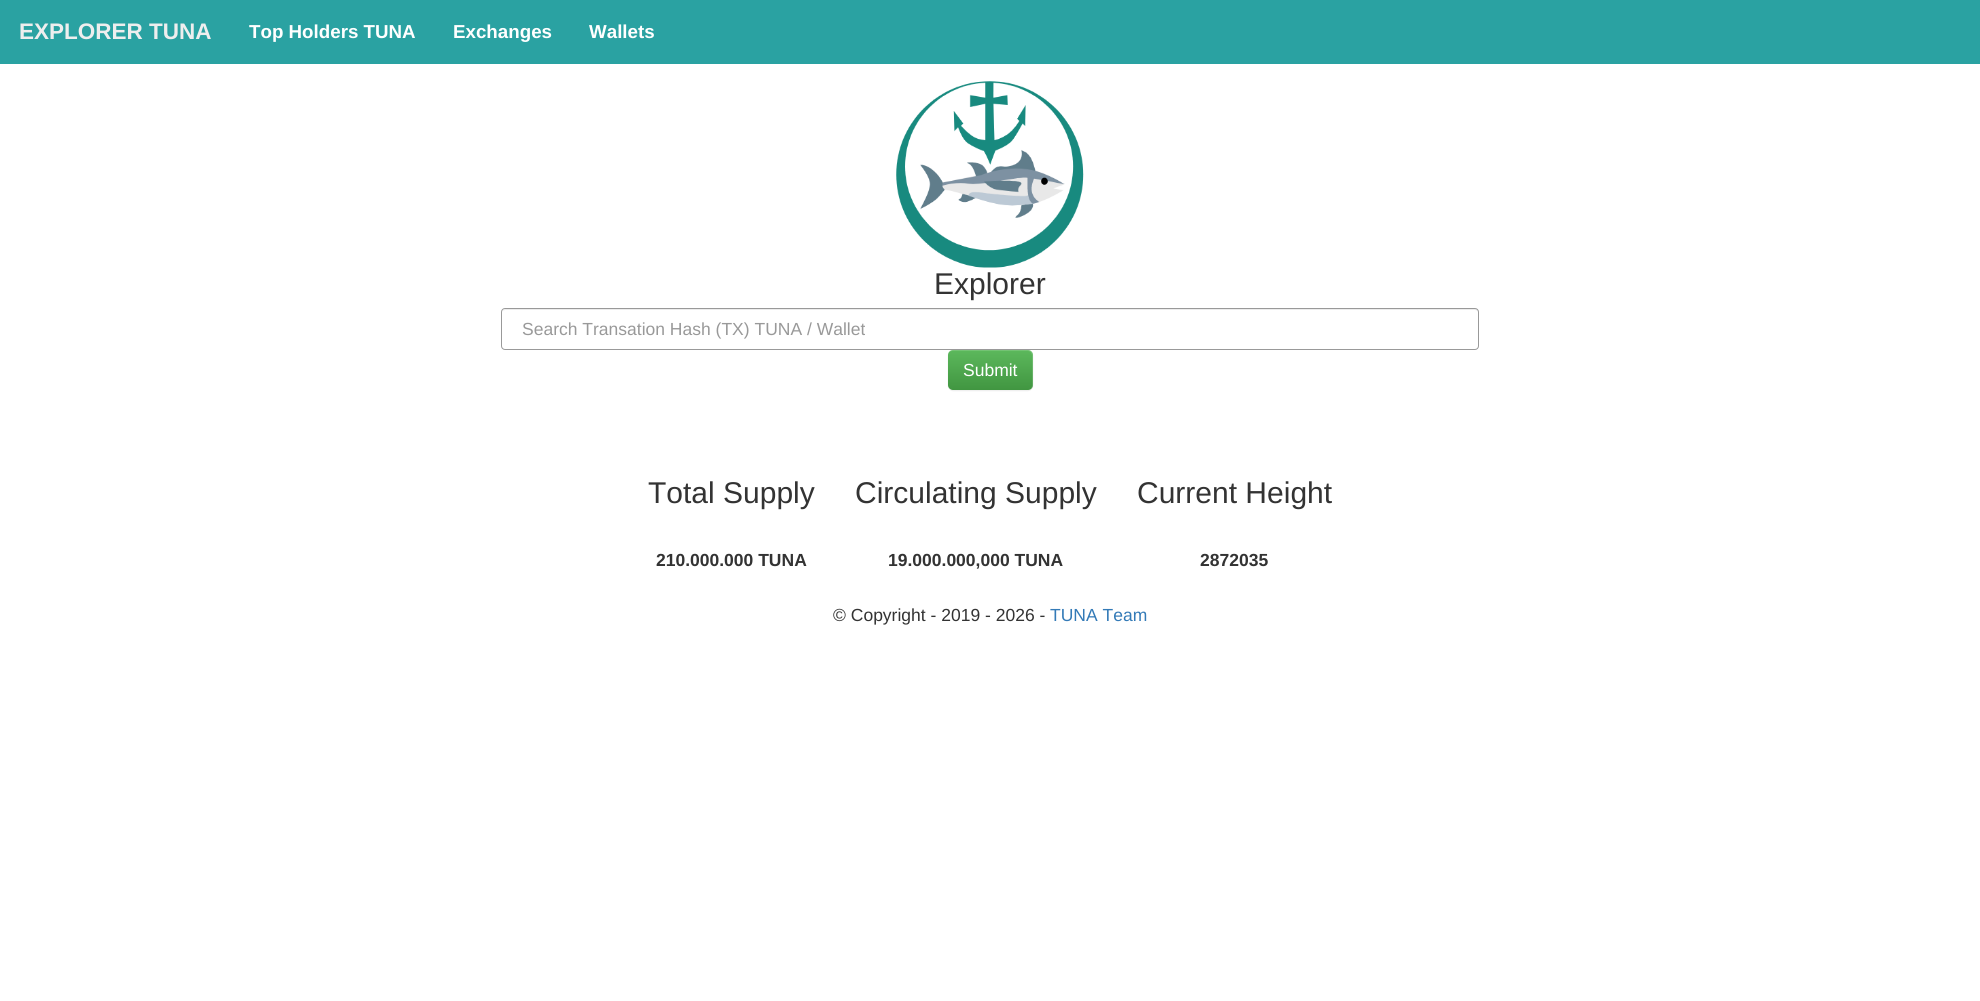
#include <cairo/cairo.h>
#include <math.h>
#include <stddef.h>

typedef struct { double x, y; const char *s; } line_t;
static cairo_t *cr;

static void rgb(unsigned color)
{
	cairo_set_source_rgb(cr, (color >> 16) / 255.0, (color >> 8 & 255) / 255.0, (color & 255) / 255.0);
}

static void rrect(double x, double y, double w, double h, double r)
{
	cairo_new_sub_path(cr);
	cairo_arc(cr, x + w - r, y + h - r, r, 0, M_PI / 2);
	cairo_arc(cr, x + r, y + h - r, r, M_PI / 2, M_PI);
	cairo_arc(cr, x + r, y + r, r, M_PI, 1.5 * M_PI);
	cairo_arc(cr, x + w - r, y + r, r, 1.5 * M_PI, 2 * M_PI);
	cairo_close_path(cr);
}

static void soft_shadow(double x, double y, double w, double h, double r, double blur, double alpha)
{
	cairo_push_group_with_content(cr, CAIRO_CONTENT_ALPHA);
	cairo_set_operator(cr, CAIRO_OPERATOR_SOURCE);
	for (int i = 15; i >= -15 && fmin(w, h) + blur * i / 3 > 0; i -= 2) {
		double e = blur * i / 6;
		cairo_set_source_rgba(cr, 0, 0, 0, alpha * erfc((i - 1) / 8.5) / 2);
		rrect(x - e, y - e, w + 2 * e, h + 2 * e, fmax(0, fmin(r + e + blur * .6, fmin(w, h) / 2 + e)));
		cairo_fill(cr);
	}
	cairo_pattern_t *soft = cairo_pop_group(cr);
	cairo_mask(cr, soft);
	cairo_pattern_destroy(soft);
}

static void image(const char *path, double x, double y, double w, double h)
{
	cairo_surface_t *image = cairo_image_surface_create_from_png(path);
	cairo_save(cr);
	cairo_set_source_surface(cr, image, x, y);
	cairo_rectangle(cr, x, y, w, h);
	cairo_fill(cr);
	cairo_restore(cr);
	cairo_surface_destroy(image);
}

int main(void) {
	cairo_surface_t *surface = cairo_image_surface_create(CAIRO_FORMAT_RGB24, 1980, 1001);
	cr = cairo_create(surface);
	cairo_font_options_t *options = cairo_font_options_create();
	cairo_font_options_set_hint_metrics(options, CAIRO_HINT_METRICS_OFF);
	cairo_font_options_set_hint_style(options, CAIRO_HINT_STYLE_NONE);
	cairo_set_font_options(cr, options);
	cairo_set_miter_limit(cr, 4);
	cairo_pattern_t *gradient;
	rgb(0xffffff);
	cairo_paint(cr);
	rgb(0x2aa2a2);
	cairo_rectangle(cr, 0, 0, 1980, 64);
	cairo_fill(cr);
	image("img/1.png", 896, 81, 188, 187);
	rgb(0xececec);
	cairo_new_path(cr);
	cairo_move_to(cr, 505, 310);
	cairo_line_to(cr, 1475, 310);
	cairo_curve_to(cr, 1476, 310, 1478, 311, 1478, 312);
	cairo_curve_to(cr, 1478, 310, 1477, 309, 1476, 309);
	cairo_line_to(cr, 506, 309);
	cairo_curve_to(cr, 504, 309, 504, 310, 503, 311);
	cairo_close_path(cr);
	cairo_fill(cr);
	rrect(501.5, 308.5, 977, 41, 3.5);
	rgb(0x999999);
	cairo_set_line_width(cr, 1);
	cairo_stroke(cr);
	rgb(0x000000);
	soft_shadow(948, 351, 85, 40, 5, 0.5, 0.07);
	gradient = cairo_pattern_create_linear(990, 350, 990, 390);
	cairo_pattern_add_color_stop_rgba(gradient, 0, 0.361, 0.722, 0.361, 1);
	cairo_pattern_add_color_stop_rgba(gradient, 1, 0.255, 0.588, 0.255, 1);
	cairo_set_source(cr, gradient);
	cairo_pattern_destroy(gradient);
	rrect(948, 350, 85, 40, 5);
	cairo_fill(cr);
	cairo_set_source_rgba(cr, 1, 1, 1, 0.15);
	cairo_new_path(cr);
	cairo_move_to(cr, 952, 351);
	cairo_line_to(cr, 1028, 351);
	cairo_curve_to(cr, 1030, 351, 1032, 353, 1032, 356);
	cairo_line_to(cr, 1032, 386);
	cairo_line_to(cr, 1031, 389);
	cairo_curve_to(cr, 1032, 388, 1033, 386, 1033, 385);
	cairo_line_to(cr, 1033, 355);
	cairo_curve_to(cr, 1033, 352, 1031, 350, 1028, 350);
	cairo_line_to(cr, 953, 350);
	cairo_curve_to(cr, 950, 350, 948, 352, 948, 355);
	cairo_line_to(cr, 948, 356);
	cairo_curve_to(cr, 948, 353, 950, 351, 952, 351);
	cairo_close_path(cr);
	cairo_fill(cr);
	cairo_select_font_face(cr, "Liberation Sans", CAIRO_FONT_SLANT_NORMAL, CAIRO_FONT_WEIGHT_BOLD);
	cairo_set_font_size(cr, 22.5);
	rgb(0xeeeeee);
	cairo_move_to(cr, 19, 39);
	cairo_show_text(cr, "EXPLORER TUNA");
	cairo_set_font_size(cr, 18.75);
	rgb(0xffffff);
	{
		static const line_t items[] = {
			{249, 38, "Top Holders TUNA"},
			{453, 38, "Exchanges"},
			{589, 38, "Wallets"},
		};
		for (size_t i = 0; i < sizeof items / sizeof *items; i++) {
			cairo_move_to(cr, items[i].x, items[i].y);
			cairo_show_text(cr, items[i].s);
		}
	}
	cairo_select_font_face(cr, "Liberation Sans", CAIRO_FONT_SLANT_NORMAL, CAIRO_FONT_WEIGHT_NORMAL);
	cairo_set_font_size(cr, 30);
	rgb(0x333333);
	cairo_move_to(cr, 934, 294);
	cairo_show_text(cr, "Explorer");
	cairo_set_font_size(cr, 17.5);
	rgb(0x999999);
	cairo_move_to(cr, 522, 335);
	cairo_show_text(cr, "Search Transation Hash (TX) TUNA / Wallet");
	rgb(0xffffff);
	cairo_move_to(cr, 963, 376);
	cairo_show_text(cr, "Submit");
	cairo_set_font_size(cr, 30);
	rgb(0x333333);
	cairo_move_to(cr, 648, 503);
	cairo_show_text(cr, "Total Supply");
	cairo_select_font_face(cr, "Liberation Sans", CAIRO_FONT_SLANT_NORMAL, CAIRO_FONT_WEIGHT_BOLD);
	cairo_set_font_size(cr, 17.5);
	cairo_move_to(cr, 656, 566);
	cairo_show_text(cr, "210.000.000 TUNA");
	cairo_select_font_face(cr, "Liberation Sans", CAIRO_FONT_SLANT_NORMAL, CAIRO_FONT_WEIGHT_NORMAL);
	cairo_set_font_size(cr, 30);
	cairo_move_to(cr, 855, 503);
	cairo_show_text(cr, "Circulating Supply");
	cairo_select_font_face(cr, "Liberation Sans", CAIRO_FONT_SLANT_NORMAL, CAIRO_FONT_WEIGHT_BOLD);
	cairo_set_font_size(cr, 17.5);
	cairo_move_to(cr, 888, 566);
	cairo_show_text(cr, "19.000.000,000 TUNA");
	cairo_select_font_face(cr, "Liberation Sans", CAIRO_FONT_SLANT_NORMAL, CAIRO_FONT_WEIGHT_NORMAL);
	cairo_set_font_size(cr, 30);
	cairo_move_to(cr, 1137, 503);
	cairo_show_text(cr, "Current Height");
	cairo_select_font_face(cr, "Liberation Sans", CAIRO_FONT_SLANT_NORMAL, CAIRO_FONT_WEIGHT_BOLD);
	cairo_set_font_size(cr, 17.5);
	cairo_move_to(cr, 1200, 566);
	cairo_show_text(cr, "2872035");
	cairo_select_font_face(cr, "Liberation Sans", CAIRO_FONT_SLANT_NORMAL, CAIRO_FONT_WEIGHT_NORMAL);
	cairo_move_to(cr, 833, 621);
	cairo_show_text(cr, "© Copyright - 2019 - 2026 -");
	rgb(0x337ab7);
	cairo_move_to(cr, 1050, 621);
	cairo_show_text(cr, "TUNA Team");
	cairo_surface_write_to_png(surface, "page.png");
	cairo_font_options_destroy(options);
	cairo_destroy(cr);
	cairo_surface_destroy(surface);
	return 0;
}
